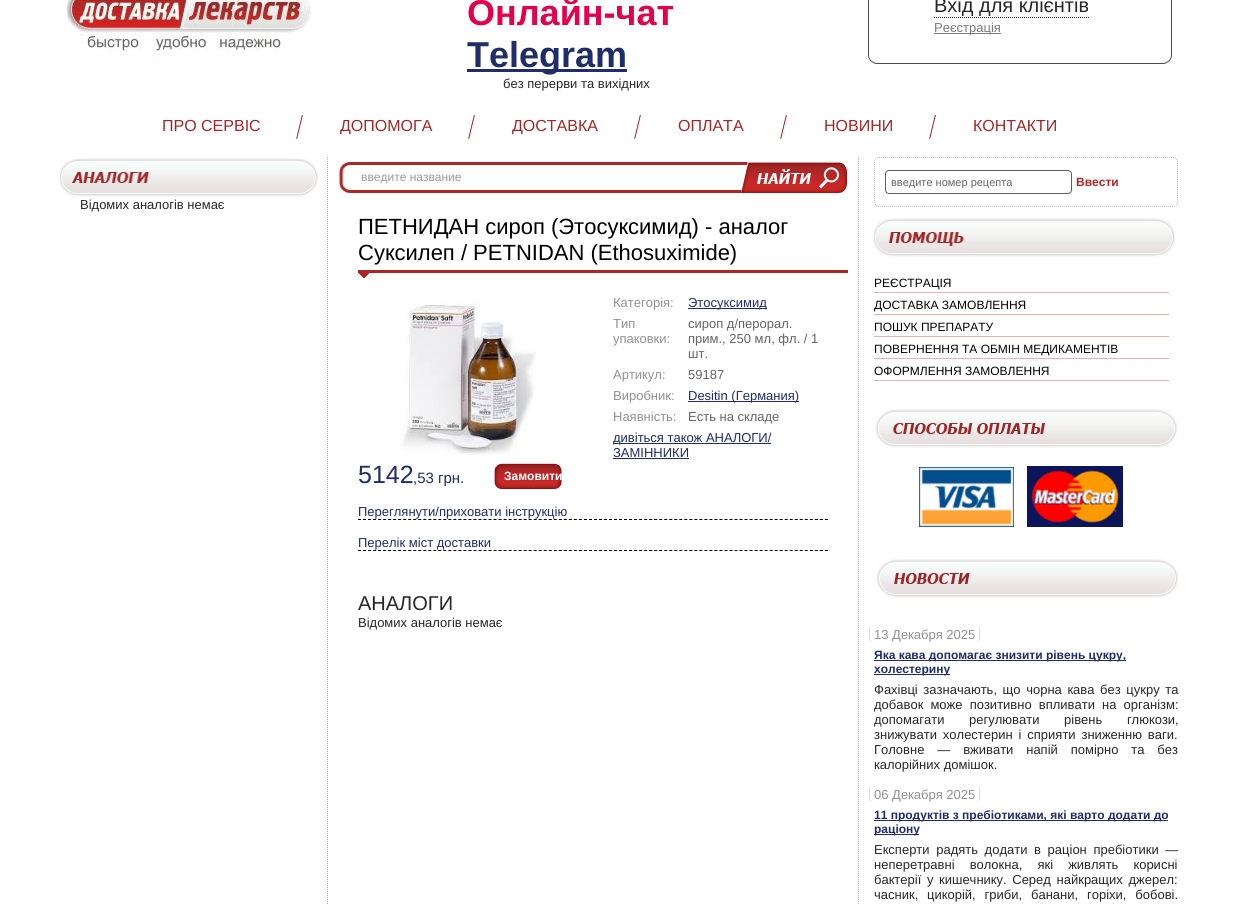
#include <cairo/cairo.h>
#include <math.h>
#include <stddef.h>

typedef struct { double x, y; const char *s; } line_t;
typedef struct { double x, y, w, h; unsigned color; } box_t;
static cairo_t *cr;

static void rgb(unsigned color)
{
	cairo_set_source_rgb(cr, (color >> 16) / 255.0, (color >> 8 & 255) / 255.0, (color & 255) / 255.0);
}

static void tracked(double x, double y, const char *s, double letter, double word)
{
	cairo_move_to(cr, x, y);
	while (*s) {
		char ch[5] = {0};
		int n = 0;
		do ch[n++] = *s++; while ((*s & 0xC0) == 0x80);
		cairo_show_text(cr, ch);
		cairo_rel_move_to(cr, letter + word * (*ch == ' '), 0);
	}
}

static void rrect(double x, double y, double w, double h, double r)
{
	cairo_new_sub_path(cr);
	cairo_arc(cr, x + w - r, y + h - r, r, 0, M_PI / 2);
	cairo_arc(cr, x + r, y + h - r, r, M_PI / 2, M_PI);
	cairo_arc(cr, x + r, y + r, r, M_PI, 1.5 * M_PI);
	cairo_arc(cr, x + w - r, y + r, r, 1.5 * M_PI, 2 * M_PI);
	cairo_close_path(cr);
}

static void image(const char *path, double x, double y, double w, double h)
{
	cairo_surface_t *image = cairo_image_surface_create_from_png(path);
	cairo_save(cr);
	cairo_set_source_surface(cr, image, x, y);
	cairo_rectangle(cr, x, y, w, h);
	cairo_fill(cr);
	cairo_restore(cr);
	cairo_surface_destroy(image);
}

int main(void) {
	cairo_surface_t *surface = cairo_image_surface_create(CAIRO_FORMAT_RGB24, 1237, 904);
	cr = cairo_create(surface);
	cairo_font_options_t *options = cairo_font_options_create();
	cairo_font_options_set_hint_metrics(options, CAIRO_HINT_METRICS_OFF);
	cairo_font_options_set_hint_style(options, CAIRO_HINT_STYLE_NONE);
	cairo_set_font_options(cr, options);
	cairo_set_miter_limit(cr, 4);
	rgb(0xffffff);
	cairo_paint(cr);
	image("img/1.png", 66, 0, 246, 64);
	rgb(0x1f2d68);
	cairo_rectangle(cr, 467, 69, 160, 3);
	cairo_fill(cr);
	image("img/2.png", 868, 0, 304, 64);
	cairo_new_path(cr);
	cairo_move_to(cr, 934, 17.5);
	cairo_line_to(cr, 1089, 17.5);
	rgb(0x272727);
	cairo_set_line_width(cr, 1);
	cairo_set_dash(cr, (double[]){1, 1}, 2, 0);
	cairo_stroke(cr);
	rgb(0x7a7a7a);
	cairo_rectangle(cr, 934, 33, 67, 1);
	cairo_fill(cr);
	image("img/3.png", 296, 115, 7, 24);
	image("img/3.png", 468, 115, 7, 24);
	image("img/3.png", 634, 115, 7, 24);
	image("img/3.png", 780, 115, 7, 24);
	image("img/3.png", 929, 115, 7, 24);
	image("img/4.png", 60, 158, 258, 39);
	cairo_new_path(cr);
	cairo_move_to(cr, 858.5, 157);
	cairo_line_to(cr, 858.5, 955);
	rgb(0xbbbbbb);
	cairo_stroke(cr);
	cairo_new_path(cr);
	cairo_move_to(cr, 327.5, 157);
	cairo_line_to(cr, 327.5, 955);
	cairo_stroke(cr);
	image("img/5.png", 339, 162, 23, 31);
	image("img/6.png", 362, 162, 387, 31);
	image("img/7.png", 741, 162, 107, 31);
	rgb(0xab2726);
	cairo_rectangle(cr, 358, 270, 490, 3);
	cairo_fill(cr);
	image("img/8.png", 359, 273, 10, 5);
	{
		static const box_t items[] = {
			{688, 308, 79, 1, 0x1f2d68},
			{688, 401, 111, 1, 0x1f2d68},
			{613, 443, 158, 1, 0x1f2d68},
			{613, 458, 76, 1, 0x1f2d68},
		};
		for (size_t i = 0; i < sizeof items / sizeof *items; i++) {
			rgb(items[i].color);
			cairo_rectangle(cr, items[i].x, items[i].y, items[i].w, items[i].h);
			cairo_fill(cr);
		}
	}
	image("img/9.png", 400, 302, 137, 153);
	image("img/10.png", 494, 463, 68, 26);
	cairo_new_path(cr);
	cairo_move_to(cr, 358, 519.5);
	cairo_line_to(cr, 828, 519.5);
	rgb(0x000000);
	cairo_set_dash(cr, (double[]){3, 2.02}, 2, 0);
	cairo_stroke(cr);
	cairo_new_path(cr);
	cairo_move_to(cr, 358, 550.5);
	cairo_line_to(cr, 828, 550.5);
	cairo_stroke(cr);
	cairo_new_path(cr);
	cairo_move_to(cr, 879, 157.5);
	cairo_line_to(cr, 1173, 157.5);
	cairo_curve_to(cr, 1175.5, 157.5, 1177.5, 159.5, 1177.5, 162);
	cairo_line_to(cr, 1177.5, 202);
	cairo_curve_to(cr, 1177.5, 204.5, 1175.5, 206.5, 1173, 206.5);
	cairo_line_to(cr, 879, 206.5);
	cairo_curve_to(cr, 876.5, 206.5, 874.5, 204.5, 874.5, 202);
	cairo_line_to(cr, 874.5, 162);
	cairo_curve_to(cr, 874.5, 159.5, 876.5, 157.5, 879, 157.5);
	cairo_close_path(cr);
	rgb(0xbbbbbb);
	cairo_set_dash(cr, (double[]){1, 1}, 2, 0);
	cairo_stroke(cr);
	rrect(885.5, 170.5, 186, 23, 3.5);
	rgb(0x5f5f5f);
	cairo_set_dash(cr, NULL, 0, 0);
	cairo_stroke(cr);
	image("img/11.png", 874, 218, 301, 39);
	{
		static const box_t items[] = {
			{874, 292, 295, 1, 0xe4b1b1},
			{874, 314, 295, 1, 0xe4b1b1},
			{874, 336, 295, 1, 0xe4b1b1},
			{874, 358, 295, 1, 0xe4b1b1},
			{874, 380, 295, 1, 0xe4b1b1},
		};
		for (size_t i = 0; i < sizeof items / sizeof *items; i++) {
			rgb(items[i].color);
			cairo_rectangle(cr, items[i].x, items[i].y, items[i].w, items[i].h);
			cairo_fill(cr);
		}
	}
	image("img/12.png", 875, 409, 303, 39);
	image("img/13.png", 919, 467, 95, 60);
	image("img/14.png", 1027, 466, 96, 61);
	image("img/15.png", 876, 559, 302, 39);
	image("img/16.png", 869, 627, 2, 14);
	image("img/17.png", 978, 627, 2, 14);
	rgb(0x1f2d68);
	cairo_rectangle(cr, 874, 660, 252, 1);
	cairo_fill(cr);
	cairo_rectangle(cr, 874, 674, 76, 1);
	cairo_fill(cr);
	image("img/16.png", 869, 787, 2, 14);
	image("img/17.png", 978, 787, 2, 14);
	cairo_rectangle(cr, 874, 820, 294, 1);
	cairo_fill(cr);
	cairo_rectangle(cr, 874, 834, 45, 1);
	cairo_fill(cr);
	cairo_select_font_face(cr, "Liberation Sans", CAIRO_FONT_SLANT_NORMAL, CAIRO_FONT_WEIGHT_BOLD);
	cairo_set_font_size(cr, 36);
	rgb(0xe2014a);
	cairo_move_to(cr, 467, 25);
	cairo_show_text(cr, "Онлайн-чат");
	rgb(0x1f2d68);
	cairo_move_to(cr, 467, 67);
	cairo_show_text(cr, "Telegram");
	cairo_select_font_face(cr, "Liberation Sans", CAIRO_FONT_SLANT_NORMAL, CAIRO_FONT_WEIGHT_NORMAL);
	cairo_set_font_size(cr, 13);
	rgb(0x272727);
	cairo_move_to(cr, 503, 88);
	cairo_show_text(cr, "без перерви та вихідних");
	cairo_set_font_size(cr, 20);
	cairo_move_to(cr, 934, 12);
	cairo_show_text(cr, "Вхід для клієнтів");
	cairo_set_font_size(cr, 13);
	rgb(0x7a7a7a);
	cairo_move_to(cr, 934, 32);
	cairo_show_text(cr, "Pеєстрація");
	cairo_set_font_size(cr, 16);
	rgb(0xa22626);
	{
		static const line_t items[] = {
			{162, 131, "ПРО СЕРВІС"},
			{340, 131, "ДОПОМОГА"},
			{512, 131, "ДОСТАВКА"},
			{678, 131, "ОПЛАТА"},
			{824, 131, "НОВИНИ"},
			{973, 131, "КОНТАКТИ"},
		};
		for (size_t i = 0; i < sizeof items / sizeof *items; i++) {
			cairo_move_to(cr, items[i].x, items[i].y);
			cairo_show_text(cr, items[i].s);
		}
	}
	cairo_set_font_size(cr, 13);
	rgb(0x272727);
	cairo_move_to(cr, 80, 209);
	cairo_show_text(cr, "Відомих аналогів немає");
	cairo_set_font_size(cr, 12);
	rgb(0x999999);
	cairo_move_to(cr, 361, 181);
	cairo_show_text(cr, "введите название");
	cairo_set_font_size(cr, 22);
	rgb(0x000000);
	cairo_move_to(cr, 358, 234);
	cairo_show_text(cr, "ПЕТНИДАН сироп (Этосуксимид) - аналог");
	cairo_move_to(cr, 358, 260);
	cairo_show_text(cr, "Суксилеп / PETNIDAN (Ethosuximide)");
	cairo_set_font_size(cr, 13);
	rgb(0x919191);
	cairo_move_to(cr, 613, 307);
	cairo_show_text(cr, "Категорія:");
	rgb(0x1f2d68);
	cairo_move_to(cr, 688, 307);
	cairo_show_text(cr, "Этосуксимид");
	rgb(0x919191);
	cairo_move_to(cr, 613, 328);
	cairo_show_text(cr, "Тип");
	cairo_move_to(cr, 613, 343);
	cairo_show_text(cr, "упаковки:");
	rgb(0x646464);
	{
		static const line_t items[] = {
			{688, 328, "сироп д/перорал."},
			{688, 343, "прим., 250 мл, фл. / 1"},
			{688, 358, "шт."},
		};
		for (size_t i = 0; i < sizeof items / sizeof *items; i++) {
			cairo_move_to(cr, items[i].x, items[i].y);
			cairo_show_text(cr, items[i].s);
		}
	}
	rgb(0x919191);
	cairo_move_to(cr, 613, 379);
	cairo_show_text(cr, "Артикул:");
	rgb(0x646464);
	cairo_move_to(cr, 688, 379);
	cairo_show_text(cr, "59187");
	rgb(0x919191);
	cairo_move_to(cr, 613, 400);
	cairo_show_text(cr, "Виробник:");
	rgb(0x1f2d68);
	cairo_move_to(cr, 688, 400);
	cairo_show_text(cr, "Desitin (Германия)");
	rgb(0x919191);
	cairo_move_to(cr, 613, 421);
	cairo_show_text(cr, "Наявність:");
	rgb(0x646464);
	cairo_move_to(cr, 688, 421);
	cairo_show_text(cr, "Есть на складе");
	rgb(0x1f2d68);
	cairo_move_to(cr, 613, 442);
	cairo_show_text(cr, "дивіться також АНАЛОГИ/");
	cairo_move_to(cr, 613, 457);
	cairo_show_text(cr, "ЗАМІННИКИ");
	cairo_set_font_size(cr, 25);
	cairo_move_to(cr, 358, 483);
	cairo_show_text(cr, "5142");
	cairo_set_font_size(cr, 15);
	cairo_move_to(cr, 413, 483);
	cairo_show_text(cr, ",53 грн.");
	cairo_select_font_face(cr, "Liberation Sans", CAIRO_FONT_SLANT_NORMAL, CAIRO_FONT_WEIGHT_BOLD);
	cairo_set_font_size(cr, 12);
	rgb(0xffffff);
	cairo_move_to(cr, 504, 480);
	cairo_show_text(cr, "Замовити");
	cairo_select_font_face(cr, "Liberation Sans", CAIRO_FONT_SLANT_NORMAL, CAIRO_FONT_WEIGHT_NORMAL);
	cairo_set_font_size(cr, 13);
	rgb(0x1f2d68);
	cairo_move_to(cr, 358, 516);
	cairo_show_text(cr, "Переглянути/приховати інструкцію");
	cairo_move_to(cr, 358, 547);
	cairo_show_text(cr, "Перелік міст доставки");
	cairo_set_font_size(cr, 20);
	rgb(0x272727);
	cairo_move_to(cr, 358, 610);
	cairo_show_text(cr, "АНАЛОГИ");
	cairo_set_font_size(cr, 13);
	cairo_move_to(cr, 358, 627);
	cairo_show_text(cr, "Відомих аналогів немає");
	cairo_save(cr);
	cairo_rectangle(cr, 891, 176, 180, 12);
	cairo_clip(cr);
	cairo_set_font_size(cr, 11);
	rgb(0x646464);
	cairo_move_to(cr, 891, 186);
	cairo_show_text(cr, "введите номер рецепта");
	cairo_restore(cr);
	cairo_select_font_face(cr, "Liberation Sans", CAIRO_FONT_SLANT_NORMAL, CAIRO_FONT_WEIGHT_BOLD);
	cairo_set_font_size(cr, 12);
	rgb(0xab2726);
	cairo_move_to(cr, 1076, 186);
	cairo_show_text(cr, "Ввести");
	cairo_select_font_face(cr, "Liberation Sans", CAIRO_FONT_SLANT_NORMAL, CAIRO_FONT_WEIGHT_NORMAL);
	rgb(0x000000);
	{
		static const line_t items[] = {
			{874, 287, "РЕЄСТРАЦІЯ"},
			{874, 309, "ДОСТАВКА ЗАМОВЛЕННЯ"},
			{874, 331, "ПОШУК ПРЕПАРАТУ"},
			{874, 353, "ПОВЕРНЕННЯ ТА ОБМІН МЕДИКАМЕНТІВ"},
			{874, 375, "ОФОРМЛЕННЯ ЗАМОВЛЕННЯ"},
		};
		for (size_t i = 0; i < sizeof items / sizeof *items; i++) {
			cairo_move_to(cr, items[i].x, items[i].y);
			cairo_show_text(cr, items[i].s);
		}
	}
	cairo_set_font_size(cr, 13);
	rgb(0x919191);
	cairo_move_to(cr, 874, 639);
	cairo_show_text(cr, "13 Декабря 2025");
	cairo_select_font_face(cr, "Liberation Sans", CAIRO_FONT_SLANT_NORMAL, CAIRO_FONT_WEIGHT_BOLD);
	cairo_set_font_size(cr, 12);
	rgb(0x1f2d68);
	cairo_move_to(cr, 874, 659);
	cairo_show_text(cr, "Яка кава допомагає знизити рівень цукру,");
	cairo_move_to(cr, 874, 673);
	cairo_show_text(cr, "холестерину");
	cairo_select_font_face(cr, "Liberation Sans", CAIRO_FONT_SLANT_NORMAL, CAIRO_FONT_WEIGHT_NORMAL);
	cairo_set_font_size(cr, 13);
	rgb(0x272727);
	tracked(874, 694, "Фахівці зазначають, що чорна кава без цукру та", 0, 2);
	tracked(874, 709, "добавок може позитивно впливати на організм:", 0, 3.5);
	tracked(874, 724, "допомагати регулювати рівень глюкози,", 0, 21);
	tracked(874, 739, "знижувати холестерин і сприяти зниженню ваги.", 0, 2.25);
	tracked(874, 754, "Головне — вживати напій помірно та без", 0, 9.25);
	cairo_move_to(cr, 874, 769);
	cairo_show_text(cr, "калорійних домішок.");
	rgb(0x919191);
	cairo_move_to(cr, 874, 799);
	cairo_show_text(cr, "06 Декабря 2025");
	cairo_select_font_face(cr, "Liberation Sans", CAIRO_FONT_SLANT_NORMAL, CAIRO_FONT_WEIGHT_BOLD);
	cairo_set_font_size(cr, 12);
	rgb(0x1f2d68);
	cairo_move_to(cr, 874, 819);
	cairo_show_text(cr, "11 продуктів з пребіотиками, які варто додати до");
	cairo_move_to(cr, 874, 833);
	cairo_show_text(cr, "раціону");
	cairo_select_font_face(cr, "Liberation Sans", CAIRO_FONT_SLANT_NORMAL, CAIRO_FONT_WEIGHT_NORMAL);
	cairo_set_font_size(cr, 13);
	rgb(0x272727);
	tracked(874, 854, "Експерти радять додати в раціон пребіотики —", 0, 3);
	tracked(874, 869, "неперетравні волокна, які живлять корисні", 0, 11.5);
	tracked(874, 884, "бактерії у кишечнику. Серед найкращих джерел:", 0, 2);
	tracked(874, 899, "часник, цикорій, гриби, банани, горіхи, бобові.", 0, 5.25);
	cairo_surface_write_to_png(surface, "page.png");
	cairo_font_options_destroy(options);
	cairo_destroy(cr);
	cairo_surface_destroy(surface);
	return 0;
}
